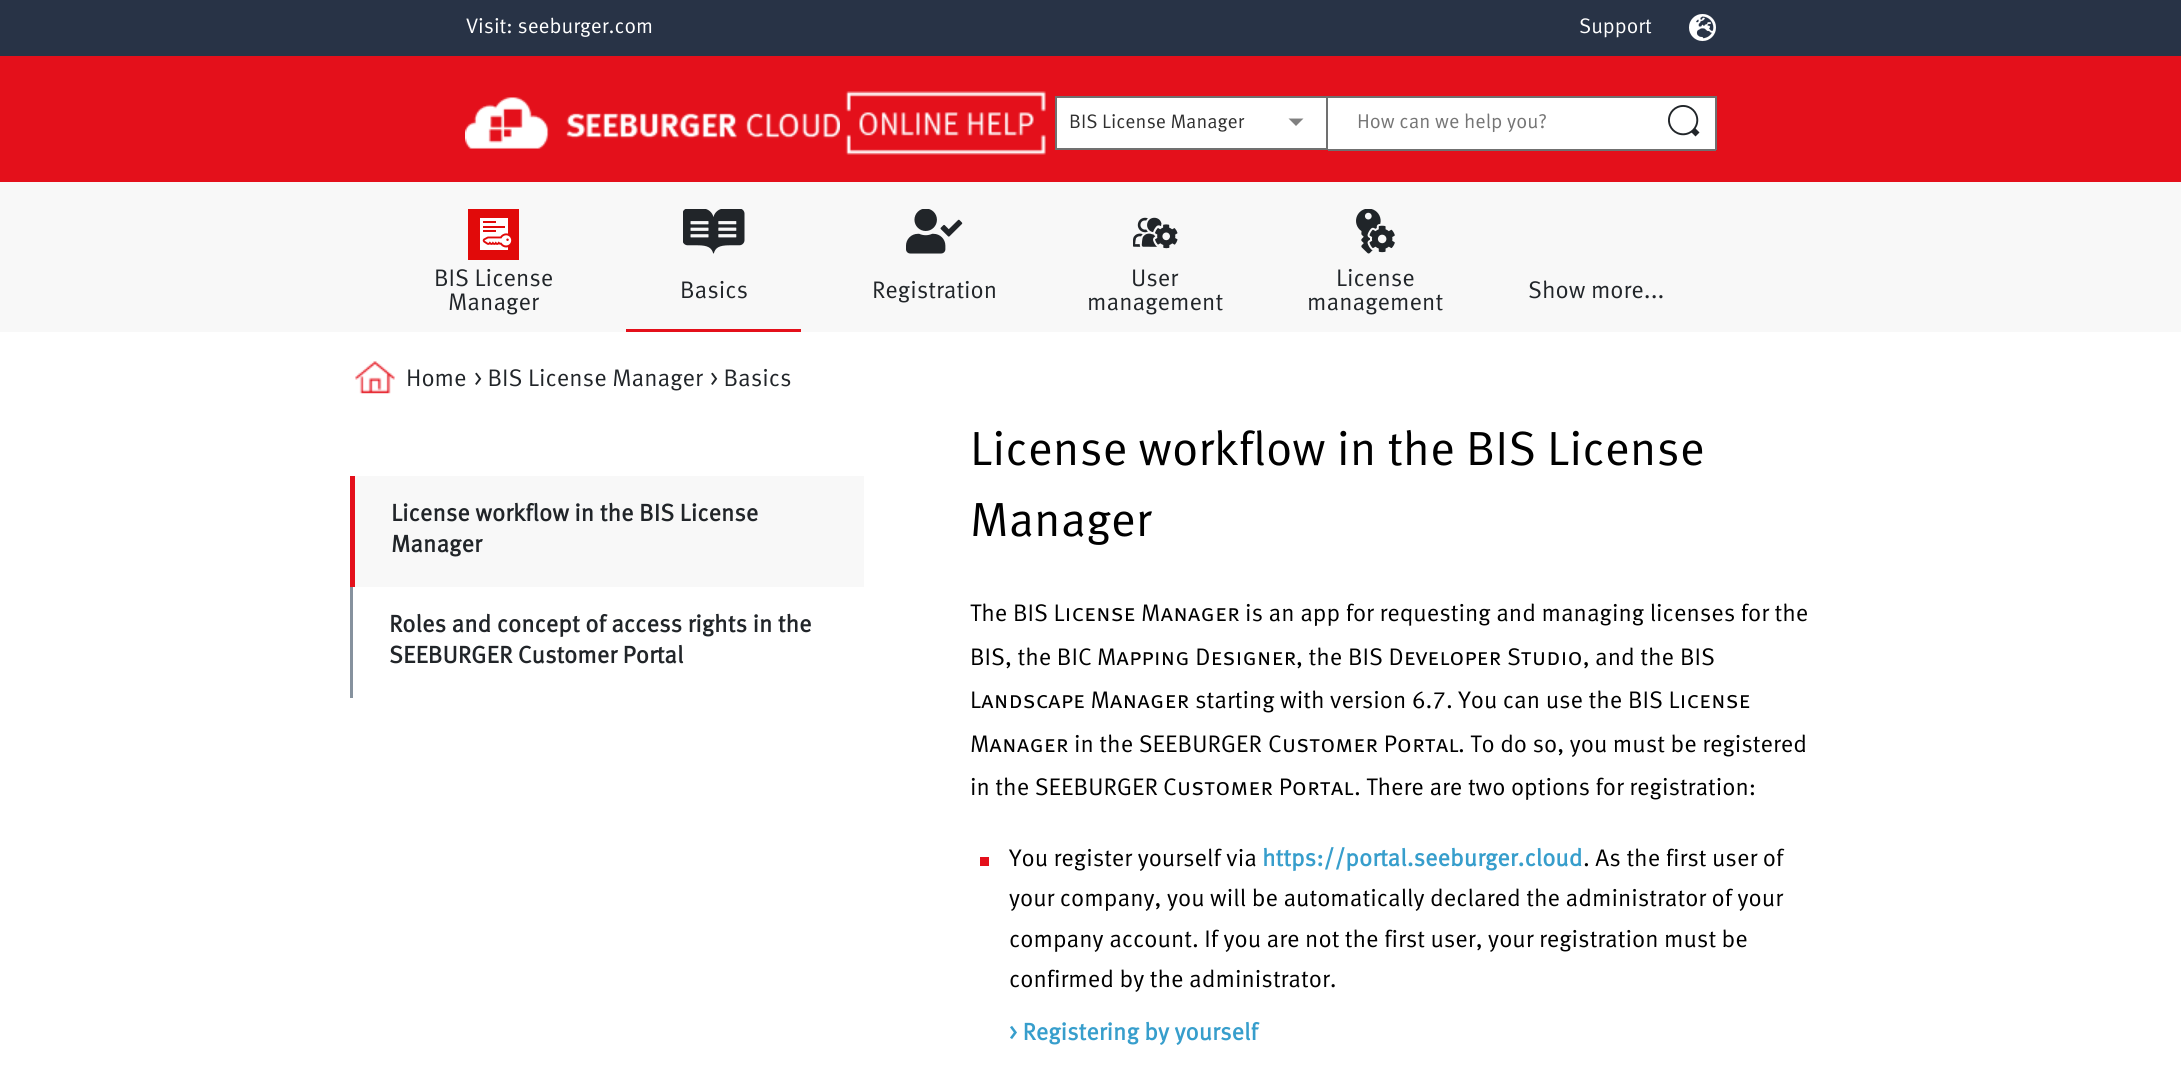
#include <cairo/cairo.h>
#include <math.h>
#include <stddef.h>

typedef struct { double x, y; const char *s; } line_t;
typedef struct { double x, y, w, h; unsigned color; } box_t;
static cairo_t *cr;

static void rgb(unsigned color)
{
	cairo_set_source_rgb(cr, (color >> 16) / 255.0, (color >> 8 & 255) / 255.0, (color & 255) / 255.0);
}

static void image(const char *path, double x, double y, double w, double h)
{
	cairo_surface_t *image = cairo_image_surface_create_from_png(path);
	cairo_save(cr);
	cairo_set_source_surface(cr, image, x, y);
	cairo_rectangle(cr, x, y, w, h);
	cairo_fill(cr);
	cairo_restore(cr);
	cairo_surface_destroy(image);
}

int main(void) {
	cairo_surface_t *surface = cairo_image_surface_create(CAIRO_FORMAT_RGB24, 2181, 1073);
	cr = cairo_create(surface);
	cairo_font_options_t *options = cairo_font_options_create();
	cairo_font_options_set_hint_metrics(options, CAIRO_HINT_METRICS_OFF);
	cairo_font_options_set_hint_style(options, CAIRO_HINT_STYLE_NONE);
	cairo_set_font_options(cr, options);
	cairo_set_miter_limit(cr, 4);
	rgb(0xffffff);
	cairo_paint(cr);
	rgb(0x283346);
	cairo_rectangle(cr, 0, 0, 2181, 56);
	cairo_fill(cr);
	image("img/1.png", 1689, 14, 27, 28);
	rgb(0xe4101b);
	cairo_rectangle(cr, 0, 56, 2181, 126);
	cairo_fill(cr);
	image("img/2.png", 465, 97, 375, 52);
	image("img/3.png", 845, 91, 201, 64);
	rgb(0xffffff);
	cairo_rectangle(cr, 1056, 97, 271, 52);
	cairo_fill_preserve(cr);
	rgb(0x707070);
	cairo_stroke(cr);
	rgb(0x808080);
	cairo_new_path(cr);
	cairo_move_to(cr, 1288.5, 118.5);
	cairo_line_to(cr, 1303.5, 118.5);
	cairo_line_to(cr, 1296, 126);
	cairo_close_path(cr);
	cairo_fill(cr);
	{
		static const box_t items[] = {
			{1328, 98, 387, 51, 0xffffff},
			{1328, 96, 388, 2, 0x707070},
			{1715, 96, 2, 54, 0x707070},
			{1328, 149, 388, 2, 0x707070},
		};
		for (size_t i = 0; i < sizeof items / sizeof *items; i++) {
			rgb(items[i].color);
			cairo_rectangle(cr, items[i].x, items[i].y, items[i].w, items[i].h);
			cairo_fill(cr);
		}
	}
	image("img/4.png", 1668, 105, 32, 32);
	rgb(0xf8f8f8);
	cairo_rectangle(cr, 0, 182, 2181, 150);
	cairo_fill(cr);
	image("img/5.png", 468, 209, 51, 51);
	rgb(0xe4101b);
	cairo_rectangle(cr, 626, 329, 175, 3);
	cairo_fill(cr);
	image("img/6.png", 683, 209, 62, 45);
	image("img/7.png", 906, 209, 57, 45);
	image("img/8.png", 1133, 217, 45, 32);
	image("img/9.png", 1356, 209, 39, 45);
	image("img/10.png", 355, 361, 40, 33);
	{
		static const box_t items[] = {
			{355, 476, 509, 111, 0xf8f8f8},
			{350, 476, 5, 111, 0xe4101b},
			{350, 587, 3, 111, 0x86929e},
			{980, 857, 9, 9, 0xe4101b},
		};
		for (size_t i = 0; i < sizeof items / sizeof *items; i++) {
			rgb(items[i].color);
			cairo_rectangle(cr, items[i].x, items[i].y, items[i].w, items[i].h);
			cairo_fill(cr);
		}
	}
	cairo_select_font_face(cr, "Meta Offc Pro", CAIRO_FONT_SLANT_NORMAL, CAIRO_FONT_WEIGHT_NORMAL);
	cairo_set_font_size(cr, 21);
	rgb(0xffffff);
	cairo_move_to(cr, 466, 33);
	cairo_show_text(cr, "Visit: seeburger.com");
	cairo_move_to(cr, 1579, 33);
	cairo_show_text(cr, "Support");
	cairo_set_font_size(cr, 19.5);
	rgb(0x303030);
	cairo_move_to(cr, 1069, 128);
	cairo_show_text(cr, "BIS License Manager");
	cairo_set_font_size(cr, 20);
	rgb(0x757575);
	cairo_move_to(cr, 1357, 128);
	cairo_show_text(cr, "How can we help you?");
	cairo_set_font_size(cr, 24);
	rgb(0x212529);
	{
		static const line_t items[] = {
			{434, 286, "BIS License"},
			{448, 310, "Manager"},
			{680, 298, "Basics"},
			{872, 298, "Registration"},
			{1131, 286, "User"},
			{1087, 310, "management"},
			{1336, 286, "License"},
			{1307, 310, "management"},
			{1528, 298, "Show more..."},
			{406, 386, "Home"},
			{474, 386, "> BIS License Manager"},
			{710, 386, "> Basics"},
		};
		for (size_t i = 0; i < sizeof items / sizeof *items; i++) {
			cairo_move_to(cr, items[i].x, items[i].y);
			cairo_show_text(cr, items[i].s);
		}
	}
	cairo_select_font_face(cr, "Meta Offc Pro", CAIRO_FONT_SLANT_NORMAL, CAIRO_FONT_WEIGHT_BOLD);
	{
		static const line_t items[] = {
			{391, 521, "License workflow in the BIS License"},
			{391, 552, "Manager"},
			{389, 632, "Roles and concept of access rights in the"},
			{389, 663, "SEEBURGER Customer Portal"},
		};
		for (size_t i = 0; i < sizeof items / sizeof *items; i++) {
			cairo_move_to(cr, items[i].x, items[i].y);
			cairo_show_text(cr, items[i].s);
		}
	}
	cairo_select_font_face(cr, "Meta Offc Pro", CAIRO_FONT_SLANT_NORMAL, CAIRO_FONT_WEIGHT_NORMAL);
	cairo_set_font_size(cr, 48);
	rgb(0x000000);
	cairo_move_to(cr, 970, 465);
	cairo_show_text(cr, "License workflow in the BIS License");
	cairo_move_to(cr, 970, 536);
	cairo_show_text(cr, "Manager");
	cairo_set_font_size(cr, 24);
	cairo_move_to(cr, 970, 621);
	cairo_show_text(cr, "The");
	cairo_select_font_face(cr, "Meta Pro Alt", CAIRO_FONT_SLANT_NORMAL, CAIRO_FONT_WEIGHT_NORMAL);
	cairo_move_to(cr, 1013, 621);
	cairo_show_text(cr, "BIS License Manager");
	cairo_select_font_face(cr, "Meta Offc Pro", CAIRO_FONT_SLANT_NORMAL, CAIRO_FONT_WEIGHT_NORMAL);
	cairo_move_to(cr, 1245, 621);
	cairo_show_text(cr, "is an app for requesting and managing licenses for the");
	cairo_select_font_face(cr, "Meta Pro", CAIRO_FONT_SLANT_NORMAL, CAIRO_FONT_WEIGHT_NORMAL);
	cairo_move_to(cr, 970, 665);
	cairo_show_text(cr, "BIS");
	cairo_select_font_face(cr, "Meta Offc Pro", CAIRO_FONT_SLANT_NORMAL, CAIRO_FONT_WEIGHT_NORMAL);
	cairo_move_to(cr, 1005, 665);
	cairo_show_text(cr, ", the BIC");
	cairo_select_font_face(cr, "Meta Pro Alt", CAIRO_FONT_SLANT_NORMAL, CAIRO_FONT_WEIGHT_NORMAL);
	cairo_move_to(cr, 1097, 665);
	cairo_show_text(cr, "Mapping Designer");
	cairo_select_font_face(cr, "Meta Offc Pro", CAIRO_FONT_SLANT_NORMAL, CAIRO_FONT_WEIGHT_NORMAL);
	cairo_move_to(cr, 1296, 665);
	cairo_show_text(cr, ", the");
	cairo_select_font_face(cr, "Meta Pro Alt", CAIRO_FONT_SLANT_NORMAL, CAIRO_FONT_WEIGHT_NORMAL);
	cairo_move_to(cr, 1348, 665);
	cairo_show_text(cr, "BIS Developer Studio,");
	cairo_select_font_face(cr, "Meta Offc Pro", CAIRO_FONT_SLANT_NORMAL, CAIRO_FONT_WEIGHT_NORMAL);
	cairo_move_to(cr, 1595, 665);
	cairo_show_text(cr, "and the");
	cairo_select_font_face(cr, "Meta Pro", CAIRO_FONT_SLANT_NORMAL, CAIRO_FONT_WEIGHT_NORMAL);
	cairo_move_to(cr, 1680, 665);
	cairo_show_text(cr, "BIS");
	cairo_select_font_face(cr, "Meta Pro Alt", CAIRO_FONT_SLANT_NORMAL, CAIRO_FONT_WEIGHT_NORMAL);
	cairo_move_to(cr, 970, 708);
	cairo_show_text(cr, "Landscape Manager");
	cairo_select_font_face(cr, "Meta Offc Pro", CAIRO_FONT_SLANT_NORMAL, CAIRO_FONT_WEIGHT_NORMAL);
	cairo_move_to(cr, 1195, 708);
	cairo_show_text(cr, "starting with version 6.7. You can use the");
	cairo_select_font_face(cr, "Meta Pro Alt", CAIRO_FONT_SLANT_NORMAL, CAIRO_FONT_WEIGHT_NORMAL);
	cairo_move_to(cr, 1628, 708);
	cairo_show_text(cr, "BIS License");
	cairo_move_to(cr, 970, 752);
	cairo_show_text(cr, "Manager");
	cairo_select_font_face(cr, "Meta Offc Pro", CAIRO_FONT_SLANT_NORMAL, CAIRO_FONT_WEIGHT_NORMAL);
	cairo_move_to(cr, 1074, 752);
	cairo_show_text(cr, "in the SEEBURGER");
	cairo_select_font_face(cr, "Meta Pro Alt", CAIRO_FONT_SLANT_NORMAL, CAIRO_FONT_WEIGHT_NORMAL);
	cairo_move_to(cr, 1268, 752);
	cairo_show_text(cr, "Customer Portal");
	cairo_select_font_face(cr, "Meta Offc Pro", CAIRO_FONT_SLANT_NORMAL, CAIRO_FONT_WEIGHT_NORMAL);
	cairo_move_to(cr, 1458, 752);
	cairo_show_text(cr, ". To do so, you must be registered");
	cairo_move_to(cr, 970, 795);
	cairo_show_text(cr, "in the SEEBURGER");
	cairo_select_font_face(cr, "Meta Pro Alt", CAIRO_FONT_SLANT_NORMAL, CAIRO_FONT_WEIGHT_NORMAL);
	cairo_move_to(cr, 1163, 795);
	cairo_show_text(cr, "Customer Portal");
	cairo_select_font_face(cr, "Meta Offc Pro", CAIRO_FONT_SLANT_NORMAL, CAIRO_FONT_WEIGHT_NORMAL);
	cairo_move_to(cr, 1354, 795);
	cairo_show_text(cr, ". There are two options for registration:");
	cairo_move_to(cr, 1009, 866);
	cairo_show_text(cr, "You register yourself via");
	cairo_select_font_face(cr, "Meta Offc Pro", CAIRO_FONT_SLANT_NORMAL, CAIRO_FONT_WEIGHT_BOLD);
	rgb(0x379ecc);
	cairo_move_to(cr, 1262, 866);
	cairo_show_text(cr, "https://portal.seeburger.cloud");
	cairo_select_font_face(cr, "Meta Offc Pro", CAIRO_FONT_SLANT_NORMAL, CAIRO_FONT_WEIGHT_NORMAL);
	rgb(0x000000);
	{
		static const line_t items[] = {
			{1583, 866, ". As the first user of"},
			{1009, 906, "your company, you will be automatically declared the administrator of your"},
			{1009, 947, "company account. If you are not the first user, your registration must be"},
			{1009, 987, "confirmed by the administrator."},
		};
		for (size_t i = 0; i < sizeof items / sizeof *items; i++) {
			cairo_move_to(cr, items[i].x, items[i].y);
			cairo_show_text(cr, items[i].s);
		}
	}
	cairo_select_font_face(cr, "Meta Offc Pro", CAIRO_FONT_SLANT_NORMAL, CAIRO_FONT_WEIGHT_BOLD);
	rgb(0x379ecc);
	cairo_move_to(cr, 1009, 1040);
	cairo_show_text(cr, "> Registering by yourself");
	cairo_surface_write_to_png(surface, "page.png");
	cairo_font_options_destroy(options);
	cairo_destroy(cr);
	cairo_surface_destroy(surface);
	return 0;
}
